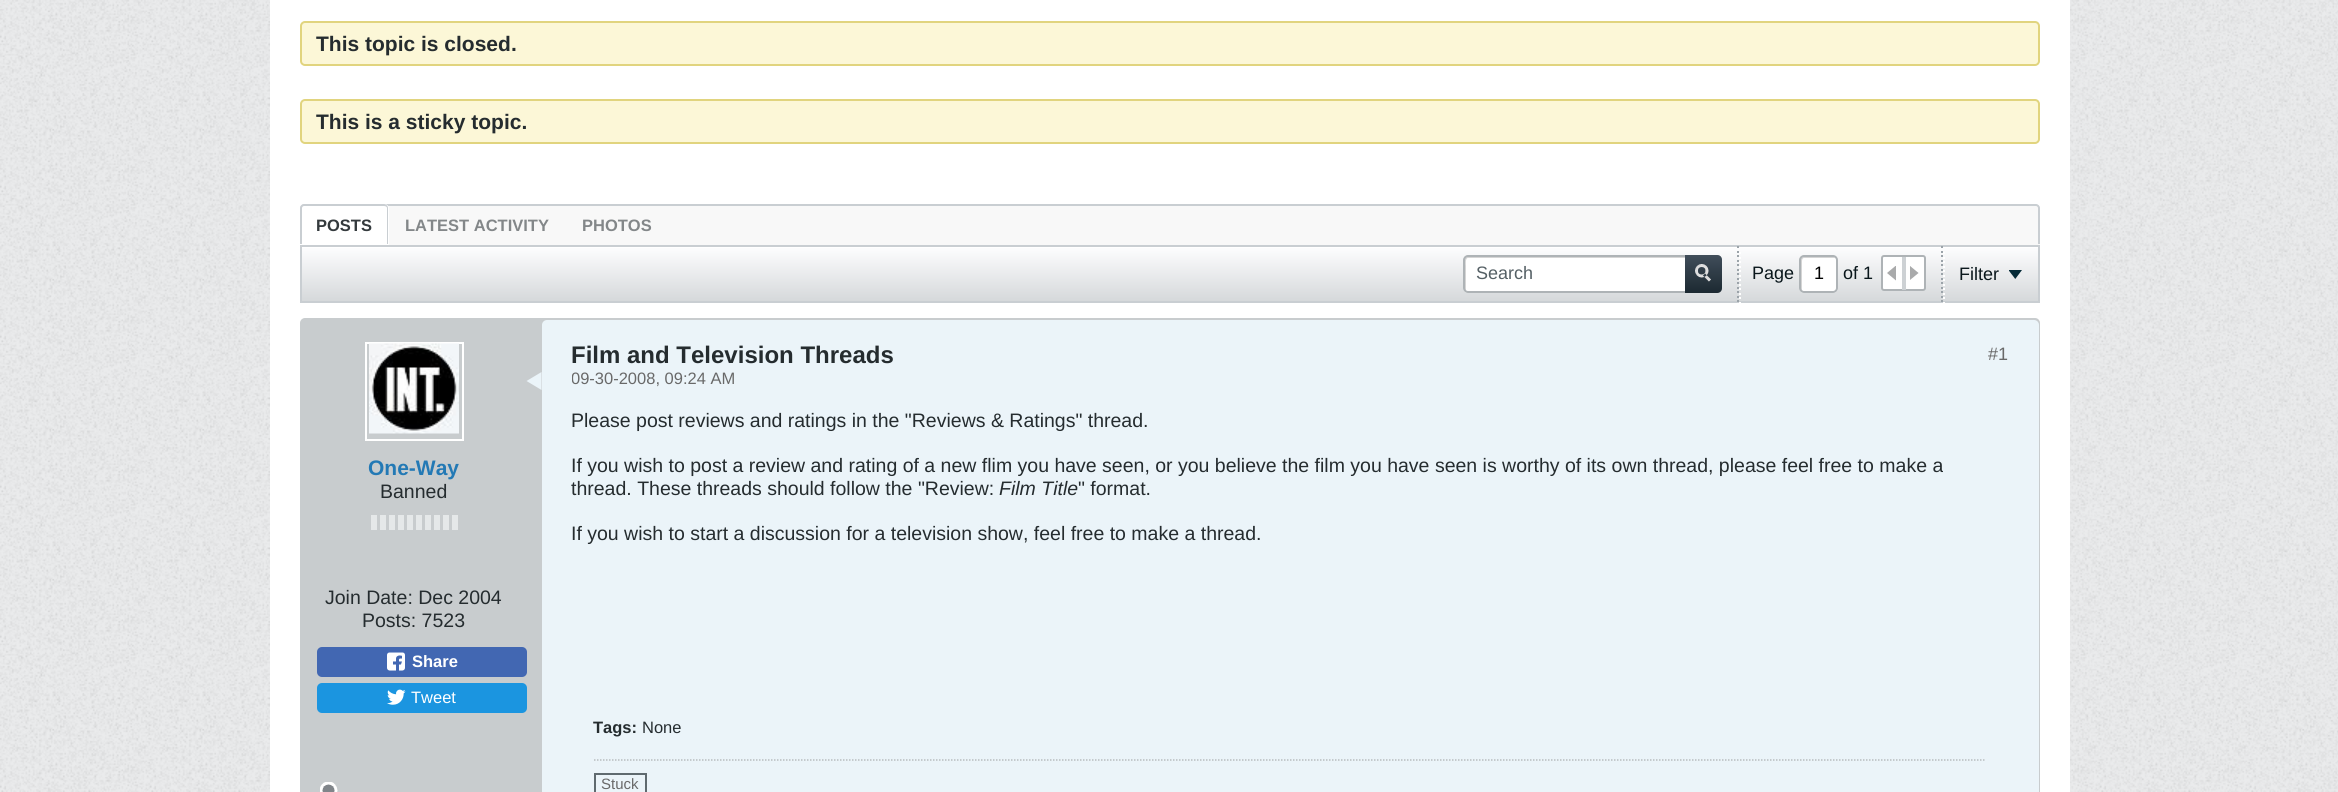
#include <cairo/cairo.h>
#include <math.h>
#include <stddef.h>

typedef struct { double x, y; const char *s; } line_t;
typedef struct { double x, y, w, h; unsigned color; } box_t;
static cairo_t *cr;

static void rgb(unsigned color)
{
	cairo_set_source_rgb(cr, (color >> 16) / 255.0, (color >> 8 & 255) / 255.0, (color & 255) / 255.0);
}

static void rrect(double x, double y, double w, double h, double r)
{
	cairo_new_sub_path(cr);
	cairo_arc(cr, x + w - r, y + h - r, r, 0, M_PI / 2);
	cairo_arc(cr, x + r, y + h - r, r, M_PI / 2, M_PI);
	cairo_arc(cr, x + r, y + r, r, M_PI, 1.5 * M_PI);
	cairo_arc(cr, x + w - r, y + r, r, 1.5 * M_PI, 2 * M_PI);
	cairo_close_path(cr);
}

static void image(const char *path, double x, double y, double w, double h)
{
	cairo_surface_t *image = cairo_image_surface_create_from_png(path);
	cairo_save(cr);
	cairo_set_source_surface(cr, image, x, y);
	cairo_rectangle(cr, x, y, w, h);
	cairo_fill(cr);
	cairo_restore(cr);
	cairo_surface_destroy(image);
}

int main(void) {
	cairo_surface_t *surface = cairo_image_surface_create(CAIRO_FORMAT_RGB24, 2338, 792);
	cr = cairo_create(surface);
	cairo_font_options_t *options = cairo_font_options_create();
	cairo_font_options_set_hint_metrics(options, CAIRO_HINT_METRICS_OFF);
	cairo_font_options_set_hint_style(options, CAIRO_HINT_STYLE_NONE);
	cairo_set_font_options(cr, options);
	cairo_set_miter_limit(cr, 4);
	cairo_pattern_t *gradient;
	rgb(0xeaebec);
	cairo_paint(cr);
	image("img/1.png", 0, 0, 2338, 792);
	rgb(0xffffff);
	cairo_rectangle(cr, 270, 0, 1800, 792);
	cairo_fill(cr);
	rgb(0xfcf7d7);
	rrect(301, 22, 1738, 43, 4);
	cairo_fill_preserve(cr);
	rgb(0xe1d47e);
	cairo_stroke(cr);
	rgb(0xfcf7d7);
	rrect(301, 100, 1738, 43, 4);
	cairo_fill_preserve(cr);
	rgb(0xe1d47e);
	cairo_stroke(cr);
	rgb(0xf8f8f8);
	cairo_new_path(cr);
	cairo_move_to(cr, 305, 204);
	cairo_line_to(cr, 2035, 204);
	cairo_curve_to(cr, 2038, 204, 2040, 206, 2040, 209);
	cairo_line_to(cr, 2040, 245);
	cairo_line_to(cr, 300, 245);
	cairo_line_to(cr, 300, 209);
	cairo_curve_to(cr, 300, 206, 302, 204, 305, 204);
	cairo_close_path(cr);
	cairo_fill(cr);
	rgb(0xc9ced2);
	cairo_set_fill_rule(cr, CAIRO_FILL_RULE_EVEN_ODD);
	cairo_new_path(cr);
	cairo_move_to(cr, 304, 204);
	cairo_line_to(cr, 2036, 204);
	cairo_curve_to(cr, 2038, 204, 2040, 206, 2040, 208);
	cairo_line_to(cr, 2040, 244);
	cairo_line_to(cr, 300, 244);
	cairo_line_to(cr, 300, 208);
	cairo_curve_to(cr, 300, 206, 302, 204, 304, 204);
	cairo_close_path(cr);
	cairo_move_to(cr, 304, 206);
	cairo_line_to(cr, 2036, 206);
	cairo_curve_to(cr, 2037, 206, 2038, 207, 2038, 208);
	cairo_line_to(cr, 2038, 244);
	cairo_line_to(cr, 302, 244);
	cairo_line_to(cr, 302, 208);
	cairo_curve_to(cr, 302, 207, 303, 206, 304, 206);
	cairo_close_path(cr);
	cairo_fill(cr);
	rgb(0xffffff);
	cairo_new_path(cr);
	cairo_move_to(cr, 305, 204);
	cairo_line_to(cr, 384, 204);
	cairo_curve_to(cr, 387, 204, 389, 206, 389, 209);
	cairo_line_to(cr, 389, 245);
	cairo_line_to(cr, 300, 245);
	cairo_line_to(cr, 300, 209);
	cairo_curve_to(cr, 300, 206, 302, 204, 305, 204);
	cairo_close_path(cr);
	cairo_fill(cr);
	rgb(0xc9ced2);
	cairo_new_path(cr);
	cairo_move_to(cr, 304, 204);
	cairo_line_to(cr, 384, 204);
	cairo_curve_to(cr, 386, 204, 388, 206, 388, 208);
	cairo_line_to(cr, 388, 244);
	cairo_line_to(cr, 300, 244);
	cairo_line_to(cr, 300, 208);
	cairo_curve_to(cr, 300, 206, 302, 204, 304, 204);
	cairo_close_path(cr);
	cairo_move_to(cr, 304, 206);
	cairo_line_to(cr, 384, 206);
	cairo_curve_to(cr, 386, 206, 387, 207, 387, 208);
	cairo_line_to(cr, 387, 244);
	cairo_line_to(cr, 302, 244);
	cairo_line_to(cr, 302, 208);
	cairo_curve_to(cr, 302, 207, 303, 206, 304, 206);
	cairo_close_path(cr);
	cairo_fill(cr);
	gradient = cairo_pattern_create_linear(1170, 246, 1170, 302);
	cairo_pattern_add_color_stop_rgba(gradient, 0, 0.996, 0.996, 1, 1);
	cairo_pattern_add_color_stop_rgba(gradient, 1, 0.835, 0.847, 0.855, 1);
	cairo_set_source(cr, gradient);
	cairo_pattern_destroy(gradient);
	cairo_rectangle(cr, 302, 248, 1736, 53);
	cairo_fill(cr);
	cairo_rectangle(cr, 301, 246, 1738, 56);
	rgb(0xc9ced2);
	cairo_stroke(cr);
	rgb(0xffffff);
	rrect(1463, 255, 259, 38, 5);
	cairo_fill(cr);
	rgb(0xd5d5d5);
	cairo_set_fill_rule(cr, CAIRO_FILL_RULE_WINDING);
	cairo_new_path(cr);
	cairo_move_to(cr, 1468, 258);
	cairo_line_to(cr, 1720, 258);
	cairo_curve_to(cr, 1720, 257, 1719, 257, 1718, 257);
	cairo_line_to(cr, 1467, 257);
	cairo_curve_to(cr, 1465, 257, 1464, 258, 1464, 260);
	cairo_line_to(cr, 1464, 288);
	cairo_curve_to(cr, 1464, 289, 1465, 291, 1466, 291);
	cairo_line_to(cr, 1466, 266);
	cairo_curve_to(cr, 1466, 265, 1465, 258, 1468, 258);
	cairo_close_path(cr);
	cairo_fill(cr);
	rrect(1464, 256, 257, 36, 4);
	rgb(0xaeb3b6);
	cairo_stroke(cr);
	gradient = cairo_pattern_create_linear(1703, 255, 1703, 293);
	cairo_pattern_add_color_stop_rgba(gradient, 0, 0.251, 0.302, 0.353, 1);
	cairo_pattern_add_color_stop_rgba(gradient, 1, 0.11, 0.161, 0.192, 1);
	cairo_set_source(cr, gradient);
	cairo_pattern_destroy(gradient);
	cairo_new_path(cr);
	cairo_move_to(cr, 1685, 255);
	cairo_line_to(cr, 1717, 255);
	cairo_curve_to(cr, 1720, 255, 1722, 257, 1722, 260);
	cairo_line_to(cr, 1722, 288);
	cairo_curve_to(cr, 1722, 291, 1720, 293, 1717, 293);
	cairo_line_to(cr, 1685, 293);
	cairo_close_path(cr);
	cairo_fill(cr);
	image("img/2.png", 1695, 264, 16, 18);
	image("img/3.png", 1737, 246, 2, 56);
	image("img/4.png", 1739, 252, 2, 51);
	rgb(0xffffff);
	rrect(1799, 255, 39, 38, 5);
	cairo_fill(cr);
	rgb(0xd5d5d5);
	cairo_new_path(cr);
	cairo_move_to(cr, 1804, 258);
	cairo_line_to(cr, 1835.5, 258);
	cairo_curve_to(cr, 1835, 257.5, 1834, 257, 1833, 257);
	cairo_line_to(cr, 1803, 257);
	cairo_curve_to(cr, 1801.5, 257, 1800, 258.5, 1800, 260);
	cairo_line_to(cr, 1800, 288);
	cairo_curve_to(cr, 1800, 289.5, 1801, 290.5, 1802.5, 291);
	cairo_line_to(cr, 1802, 290);
	cairo_line_to(cr, 1802, 261);
	cairo_curve_to(cr, 1802, 259, 1803, 258, 1804, 258);
	cairo_close_path(cr);
	cairo_fill(cr);
	rrect(1800, 256, 37, 36, 4);
	rgb(0xaeb3b6);
	cairo_stroke(cr);
	rgb(0xffffff);
	rrect(1882, 256, 43, 34, 2);
	cairo_fill_preserve(cr);
	rgb(0xaeb3b6);
	cairo_stroke(cr);
	rgb(0xcdd1d4);
	cairo_rectangle(cr, 1902, 257, 4, 33);
	cairo_fill(cr);
	image("img/5.png", 1887, 266, 9, 15);
	image("img/6.png", 1910, 266, 9, 14);
	image("img/3.png", 1941, 246, 2, 56);
	image("img/4.png", 1943, 252, 2, 51);
	image("img/7.png", 2009, 270, 13, 9);
	rgb(0xc8ccce);
	rrect(301, 319, 1738, 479, 4);
	cairo_fill_preserve(cr);
	cairo_stroke(cr);
	cairo_rectangle(cr, 366, 343, 97, 97);
	rgb(0xffffff);
	cairo_stroke(cr);
	image("img/8.png", 369, 343, 90, 91);
	{
		static const box_t items[] = {
			{371, 515, 6, 15, 0xe5e8e9},
			{380, 515, 6, 15, 0xe5e8e9},
			{389, 515, 6, 15, 0xe5e8e9},
			{398, 515, 6, 15, 0xe5e8e9},
			{407, 515, 6, 15, 0xe5e8e9},
			{416, 515, 6, 15, 0xe5e8e9},
			{425, 515, 6, 15, 0xe5e8e9},
			{434, 515, 6, 15, 0xe5e8e9},
			{443, 515, 6, 15, 0xe5e8e9},
			{452, 515, 6, 15, 0xe5e8e9},
		};
		for (size_t i = 0; i < sizeof items / sizeof *items; i++) {
			rgb(items[i].color);
			cairo_rectangle(cr, items[i].x, items[i].y, items[i].w, items[i].h);
			cairo_fill(cr);
		}
	}
	image("img/9.png", 320, 782, 18, 10);
	rgb(0x4267b2);
	rrect(317, 647, 210, 30, 5);
	cairo_fill(cr);
	image("img/10.png", 387, 652, 18, 19);
	rgb(0x1b95e0);
	rrect(317, 683, 210, 30, 5);
	cairo_fill(cr);
	image("img/11.png", 387, 689, 19, 16);
	rgb(0xebf4f9);
	rrect(542, 320, 1497, 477, 5);
	cairo_fill(cr);
	cairo_new_path(cr);
	cairo_move_to(cr, 541.5, 372);
	cairo_line_to(cr, 541.5, 390);
	cairo_line_to(cr, 526.5, 381);
	cairo_close_path(cr);
	cairo_fill(cr);
	cairo_new_path(cr);
	cairo_move_to(cr, 594, 760);
	cairo_line_to(cr, 1986, 760);
	rgb(0xb7bcbe);
	cairo_set_line_width(cr, 1.5);
	cairo_set_dash(cr, (double[]){1.5, 1.5}, 2, 0);
	cairo_stroke(cr);
	cairo_rectangle(cr, 595, 774, 51, 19);
	rgb(0x5f6a6f);
	cairo_set_line_width(cr, 2);
	cairo_set_dash(cr, NULL, 0, 0);
	cairo_stroke(cr);
	cairo_select_font_face(cr, "Liberation Sans", CAIRO_FONT_SLANT_NORMAL, CAIRO_FONT_WEIGHT_BOLD);
	cairo_set_font_size(cr, 21);
	rgb(0x252c2f);
	cairo_move_to(cr, 316, 51);
	cairo_show_text(cr, "This topic is closed.");
	cairo_move_to(cr, 316, 129);
	cairo_show_text(cr, "This is a sticky topic.");
	cairo_set_font_size(cr, 16.5);
	rgb(0x343a3d);
	cairo_move_to(cr, 316, 231);
	cairo_show_text(cr, "POSTS");
	rgb(0x838789);
	cairo_move_to(cr, 405, 231);
	cairo_show_text(cr, "LATEST ACTIVITY");
	cairo_move_to(cr, 582, 231);
	cairo_show_text(cr, "PHOTOS");
	cairo_select_font_face(cr, "Liberation Sans", CAIRO_FONT_SLANT_NORMAL, CAIRO_FONT_WEIGHT_NORMAL);
	cairo_set_font_size(cr, 18);
	rgb(0x556065);
	cairo_move_to(cr, 1476, 279);
	cairo_show_text(cr, "Search");
	rgb(0x09161b);
	cairo_move_to(cr, 1752, 279);
	cairo_show_text(cr, "Page");
	rgb(0x000000);
	cairo_move_to(cr, 1814, 279);
	cairo_show_text(cr, "1");
	rgb(0x09161b);
	cairo_move_to(cr, 1843, 279);
	cairo_show_text(cr, "of 1");
	cairo_move_to(cr, 1959, 280);
	cairo_show_text(cr, "Filter");
	cairo_select_font_face(cr, "Liberation Sans", CAIRO_FONT_SLANT_NORMAL, CAIRO_FONT_WEIGHT_BOLD);
	cairo_set_font_size(cr, 21);
	rgb(0x2379b5);
	cairo_move_to(cr, 368, 475);
	cairo_show_text(cr, "One-Way");
	cairo_select_font_face(cr, "Liberation Sans", CAIRO_FONT_SLANT_NORMAL, CAIRO_FONT_WEIGHT_NORMAL);
	cairo_set_font_size(cr, 19.5);
	rgb(0x252c2f);
	{
		static const line_t items[] = {
			{380, 498, "Banned"},
			{325, 604, "Join Date: Dec 2004"},
			{362, 627, "Posts: 7523"},
		};
		for (size_t i = 0; i < sizeof items / sizeof *items; i++) {
			cairo_move_to(cr, items[i].x, items[i].y);
			cairo_show_text(cr, items[i].s);
		}
	}
	cairo_select_font_face(cr, "Liberation Sans", CAIRO_FONT_SLANT_NORMAL, CAIRO_FONT_WEIGHT_BOLD);
	cairo_set_font_size(cr, 16.5);
	rgb(0xffffff);
	cairo_move_to(cr, 412, 667);
	cairo_show_text(cr, "Share");
	cairo_select_font_face(cr, "Liberation Sans", CAIRO_FONT_SLANT_NORMAL, CAIRO_FONT_WEIGHT_NORMAL);
	cairo_move_to(cr, 411, 703);
	cairo_show_text(cr, "Tweet");
	cairo_select_font_face(cr, "Liberation Sans", CAIRO_FONT_SLANT_NORMAL, CAIRO_FONT_WEIGHT_BOLD);
	cairo_set_font_size(cr, 24);
	rgb(0x252c2f);
	cairo_move_to(cr, 571, 363);
	cairo_show_text(cr, "Film and Television Threads");
	cairo_save(cr);
	cairo_rectangle(cr, 572, 342, 1416, 45);
	cairo_clip(cr);
	cairo_select_font_face(cr, "Liberation Sans", CAIRO_FONT_SLANT_NORMAL, CAIRO_FONT_WEIGHT_NORMAL);
	cairo_set_font_size(cr, 16.5);
	rgb(0x696969);
	cairo_move_to(cr, 571, 384);
	cairo_show_text(cr, "09-30-2008, 09:24 AM");
	cairo_restore(cr);
	cairo_select_font_face(cr, "Liberation Sans", CAIRO_FONT_SLANT_NORMAL, CAIRO_FONT_WEIGHT_NORMAL);
	cairo_set_font_size(cr, 18);
	rgb(0x696969);
	cairo_move_to(cr, 1988, 360);
	cairo_show_text(cr, "#1");
	cairo_set_font_size(cr, 19.5);
	rgb(0x252c2f);
	{
		static const line_t items[] = {
			{571, 427, "Please post reviews and ratings in the \"Reviews & Ratings\" thread."},
			{571, 472, "If you wish to post a review and rating of a new flim you have seen, or you believe the film you have seen is worthy of its own thread, please feel free to make a"},
			{571, 495, "thread. These threads should follow the \"Review:"},
		};
		for (size_t i = 0; i < sizeof items / sizeof *items; i++) {
			cairo_move_to(cr, items[i].x, items[i].y);
			cairo_show_text(cr, items[i].s);
		}
	}
	cairo_select_font_face(cr, "Liberation Sans", CAIRO_FONT_SLANT_ITALIC, CAIRO_FONT_WEIGHT_NORMAL);
	cairo_move_to(cr, 999, 495);
	cairo_show_text(cr, "Film Title");
	cairo_select_font_face(cr, "Liberation Sans", CAIRO_FONT_SLANT_NORMAL, CAIRO_FONT_WEIGHT_NORMAL);
	cairo_move_to(cr, 1078, 495);
	cairo_show_text(cr, "\" format.");
	cairo_move_to(cr, 571, 540);
	cairo_show_text(cr, "If you wish to start a discussion for a television show, feel free to make a thread.");
	cairo_select_font_face(cr, "Liberation Sans", CAIRO_FONT_SLANT_NORMAL, CAIRO_FONT_WEIGHT_BOLD);
	cairo_set_font_size(cr, 16.5);
	cairo_move_to(cr, 593, 733);
	cairo_show_text(cr, "Tags:");
	cairo_select_font_face(cr, "Liberation Sans", CAIRO_FONT_SLANT_NORMAL, CAIRO_FONT_WEIGHT_NORMAL);
	cairo_move_to(cr, 642, 733);
	cairo_show_text(cr, "None");
	cairo_set_font_size(cr, 15);
	rgb(0x696969);
	cairo_move_to(cr, 601, 789);
	cairo_show_text(cr, "Stuck");
	cairo_surface_write_to_png(surface, "page.png");
	cairo_font_options_destroy(options);
	cairo_destroy(cr);
	cairo_surface_destroy(surface);
	return 0;
}
